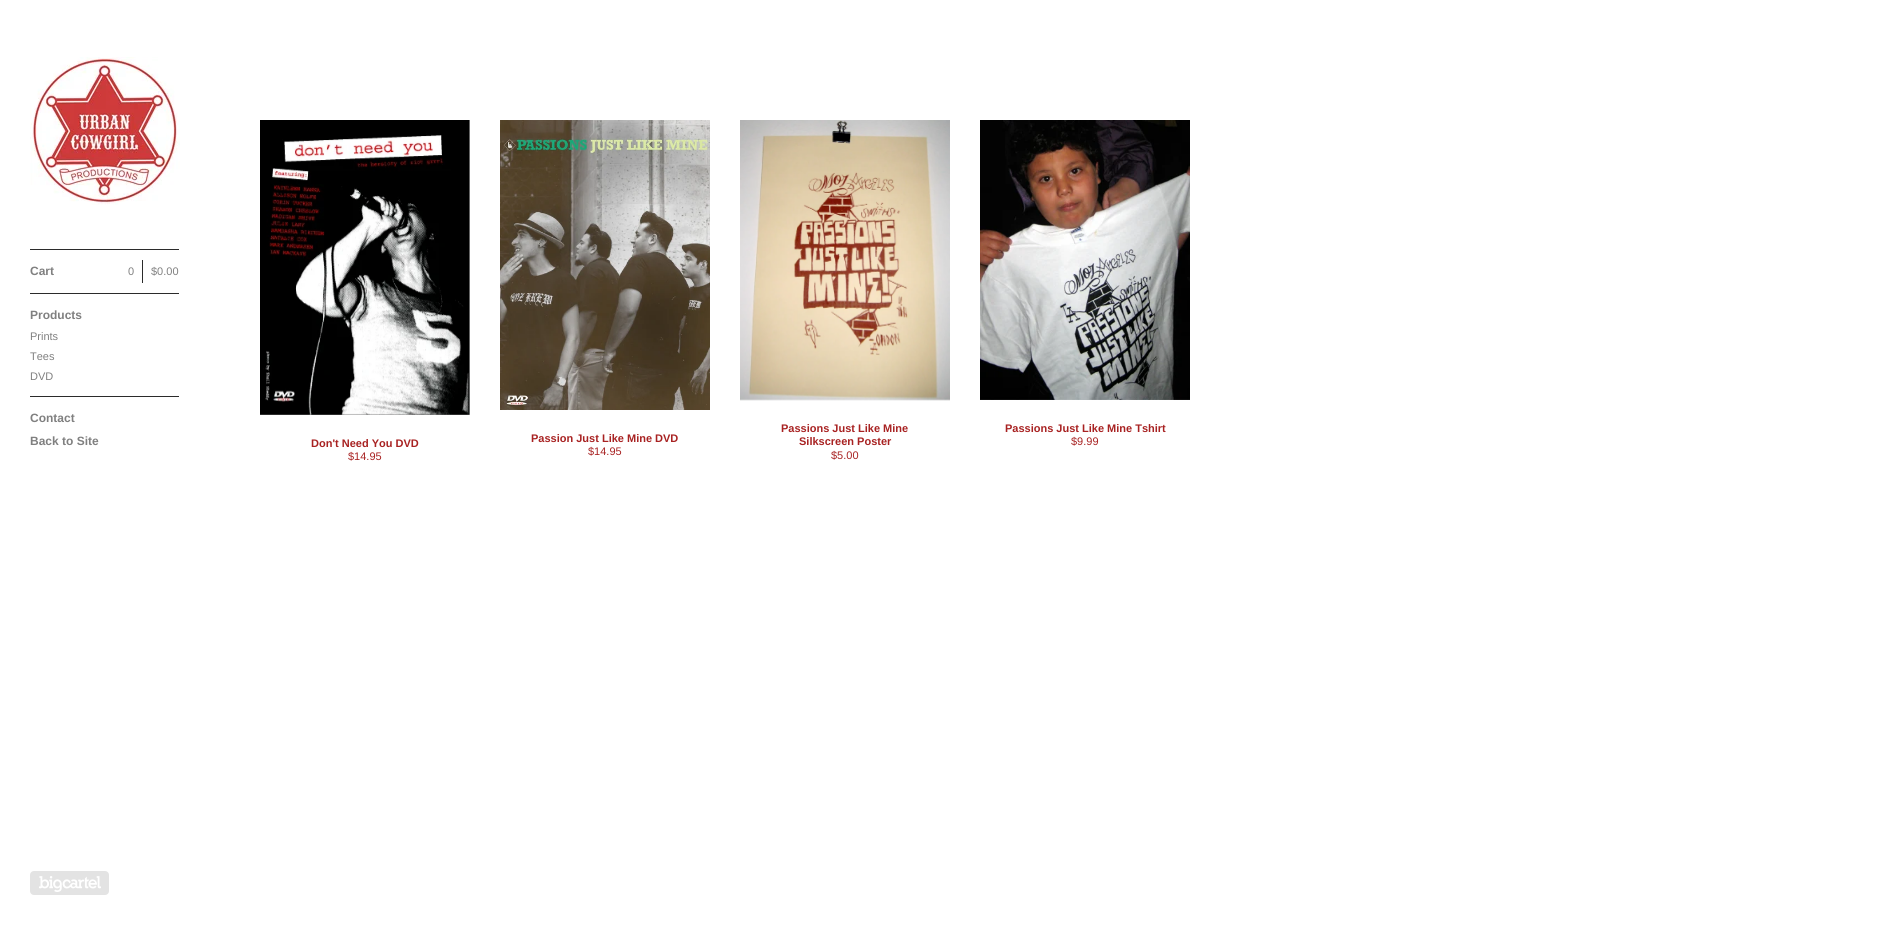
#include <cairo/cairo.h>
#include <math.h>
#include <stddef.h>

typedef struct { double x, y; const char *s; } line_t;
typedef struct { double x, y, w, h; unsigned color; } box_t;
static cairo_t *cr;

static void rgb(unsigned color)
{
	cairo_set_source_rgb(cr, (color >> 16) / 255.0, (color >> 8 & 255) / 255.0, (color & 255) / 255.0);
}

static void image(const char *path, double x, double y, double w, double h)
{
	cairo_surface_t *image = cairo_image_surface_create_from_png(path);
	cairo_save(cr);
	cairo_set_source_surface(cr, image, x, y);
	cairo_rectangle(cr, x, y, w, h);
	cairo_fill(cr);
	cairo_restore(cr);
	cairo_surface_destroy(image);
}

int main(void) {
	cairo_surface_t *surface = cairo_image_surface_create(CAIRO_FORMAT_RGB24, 1885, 925);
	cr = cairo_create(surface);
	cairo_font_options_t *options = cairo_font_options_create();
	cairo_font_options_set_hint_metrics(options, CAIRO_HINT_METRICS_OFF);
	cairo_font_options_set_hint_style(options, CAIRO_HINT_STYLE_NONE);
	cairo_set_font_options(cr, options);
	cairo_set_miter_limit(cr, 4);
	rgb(0xffffff);
	cairo_paint(cr);
	image("img/1.png", 30, 57, 150, 148);
	{
		static const box_t items[] = {
			{30, 249, 149, 1, 0x2b2b2b},
			{142, 260, 1, 23, 0x2b2b2b},
			{30, 293, 149, 1, 0x2b2b2b},
			{30, 396, 149, 1, 0x2b2b2b},
		};
		for (size_t i = 0; i < sizeof items / sizeof *items; i++) {
			rgb(items[i].color);
			cairo_rectangle(cr, items[i].x, items[i].y, items[i].w, items[i].h);
			cairo_fill(cr);
		}
	}
	image("img/2.png", 30, 871, 79, 24);
	image("img/3.png", 260, 120, 210, 295);
	image("img/4.png", 500, 120, 210, 290);
	image("img/5.png", 740, 120, 210, 281);
	image("img/6.png", 980, 120, 210, 280);
	cairo_select_font_face(cr, "Liberation Sans", CAIRO_FONT_SLANT_NORMAL, CAIRO_FONT_WEIGHT_BOLD);
	cairo_set_font_size(cr, 12);
	rgb(0x808080);
	cairo_move_to(cr, 30, 275);
	cairo_show_text(cr, "Cart");
	cairo_select_font_face(cr, "Liberation Sans", CAIRO_FONT_SLANT_NORMAL, CAIRO_FONT_WEIGHT_NORMAL);
	cairo_set_font_size(cr, 11);
	cairo_move_to(cr, 128, 275);
	cairo_show_text(cr, "0");
	cairo_move_to(cr, 151, 275);
	cairo_show_text(cr, "$0.00");
	cairo_select_font_face(cr, "Liberation Sans", CAIRO_FONT_SLANT_NORMAL, CAIRO_FONT_WEIGHT_BOLD);
	cairo_set_font_size(cr, 12);
	cairo_move_to(cr, 30, 319);
	cairo_show_text(cr, "Products");
	cairo_select_font_face(cr, "Liberation Sans", CAIRO_FONT_SLANT_NORMAL, CAIRO_FONT_WEIGHT_NORMAL);
	cairo_set_font_size(cr, 11);
	{
		static const line_t items[] = {
			{30, 340, "Prints"},
			{30, 360, "Tees"},
			{30, 380, "DVD"},
		};
		for (size_t i = 0; i < sizeof items / sizeof *items; i++) {
			cairo_move_to(cr, items[i].x, items[i].y);
			cairo_show_text(cr, items[i].s);
		}
	}
	cairo_select_font_face(cr, "Liberation Sans", CAIRO_FONT_SLANT_NORMAL, CAIRO_FONT_WEIGHT_BOLD);
	cairo_set_font_size(cr, 12);
	cairo_move_to(cr, 30, 422);
	cairo_show_text(cr, "Contact");
	cairo_move_to(cr, 30, 445);
	cairo_show_text(cr, "Back to Site");
	cairo_set_font_size(cr, 11);
	rgb(0xa82222);
	cairo_move_to(cr, 311, 447);
	cairo_show_text(cr, "Don't Need You DVD");
	cairo_select_font_face(cr, "Liberation Sans", CAIRO_FONT_SLANT_NORMAL, CAIRO_FONT_WEIGHT_NORMAL);
	cairo_move_to(cr, 348, 460);
	cairo_show_text(cr, "$14.95");
	cairo_select_font_face(cr, "Liberation Sans", CAIRO_FONT_SLANT_NORMAL, CAIRO_FONT_WEIGHT_BOLD);
	cairo_move_to(cr, 531, 442);
	cairo_show_text(cr, "Passion Just Like Mine DVD");
	cairo_select_font_face(cr, "Liberation Sans", CAIRO_FONT_SLANT_NORMAL, CAIRO_FONT_WEIGHT_NORMAL);
	cairo_move_to(cr, 588, 455);
	cairo_show_text(cr, "$14.95");
	cairo_select_font_face(cr, "Liberation Sans", CAIRO_FONT_SLANT_NORMAL, CAIRO_FONT_WEIGHT_BOLD);
	cairo_move_to(cr, 781, 432);
	cairo_show_text(cr, "Passions Just Like Mine");
	cairo_move_to(cr, 799, 445);
	cairo_show_text(cr, "Silkscreen Poster");
	cairo_select_font_face(cr, "Liberation Sans", CAIRO_FONT_SLANT_NORMAL, CAIRO_FONT_WEIGHT_NORMAL);
	cairo_move_to(cr, 831, 459);
	cairo_show_text(cr, "$5.00");
	cairo_select_font_face(cr, "Liberation Sans", CAIRO_FONT_SLANT_NORMAL, CAIRO_FONT_WEIGHT_BOLD);
	cairo_move_to(cr, 1005, 432);
	cairo_show_text(cr, "Passions Just Like Mine Tshirt");
	cairo_select_font_face(cr, "Liberation Sans", CAIRO_FONT_SLANT_NORMAL, CAIRO_FONT_WEIGHT_NORMAL);
	cairo_move_to(cr, 1071, 445);
	cairo_show_text(cr, "$9.99");
	cairo_surface_write_to_png(surface, "page.png");
	cairo_font_options_destroy(options);
	cairo_destroy(cr);
	cairo_surface_destroy(surface);
	return 0;
}
